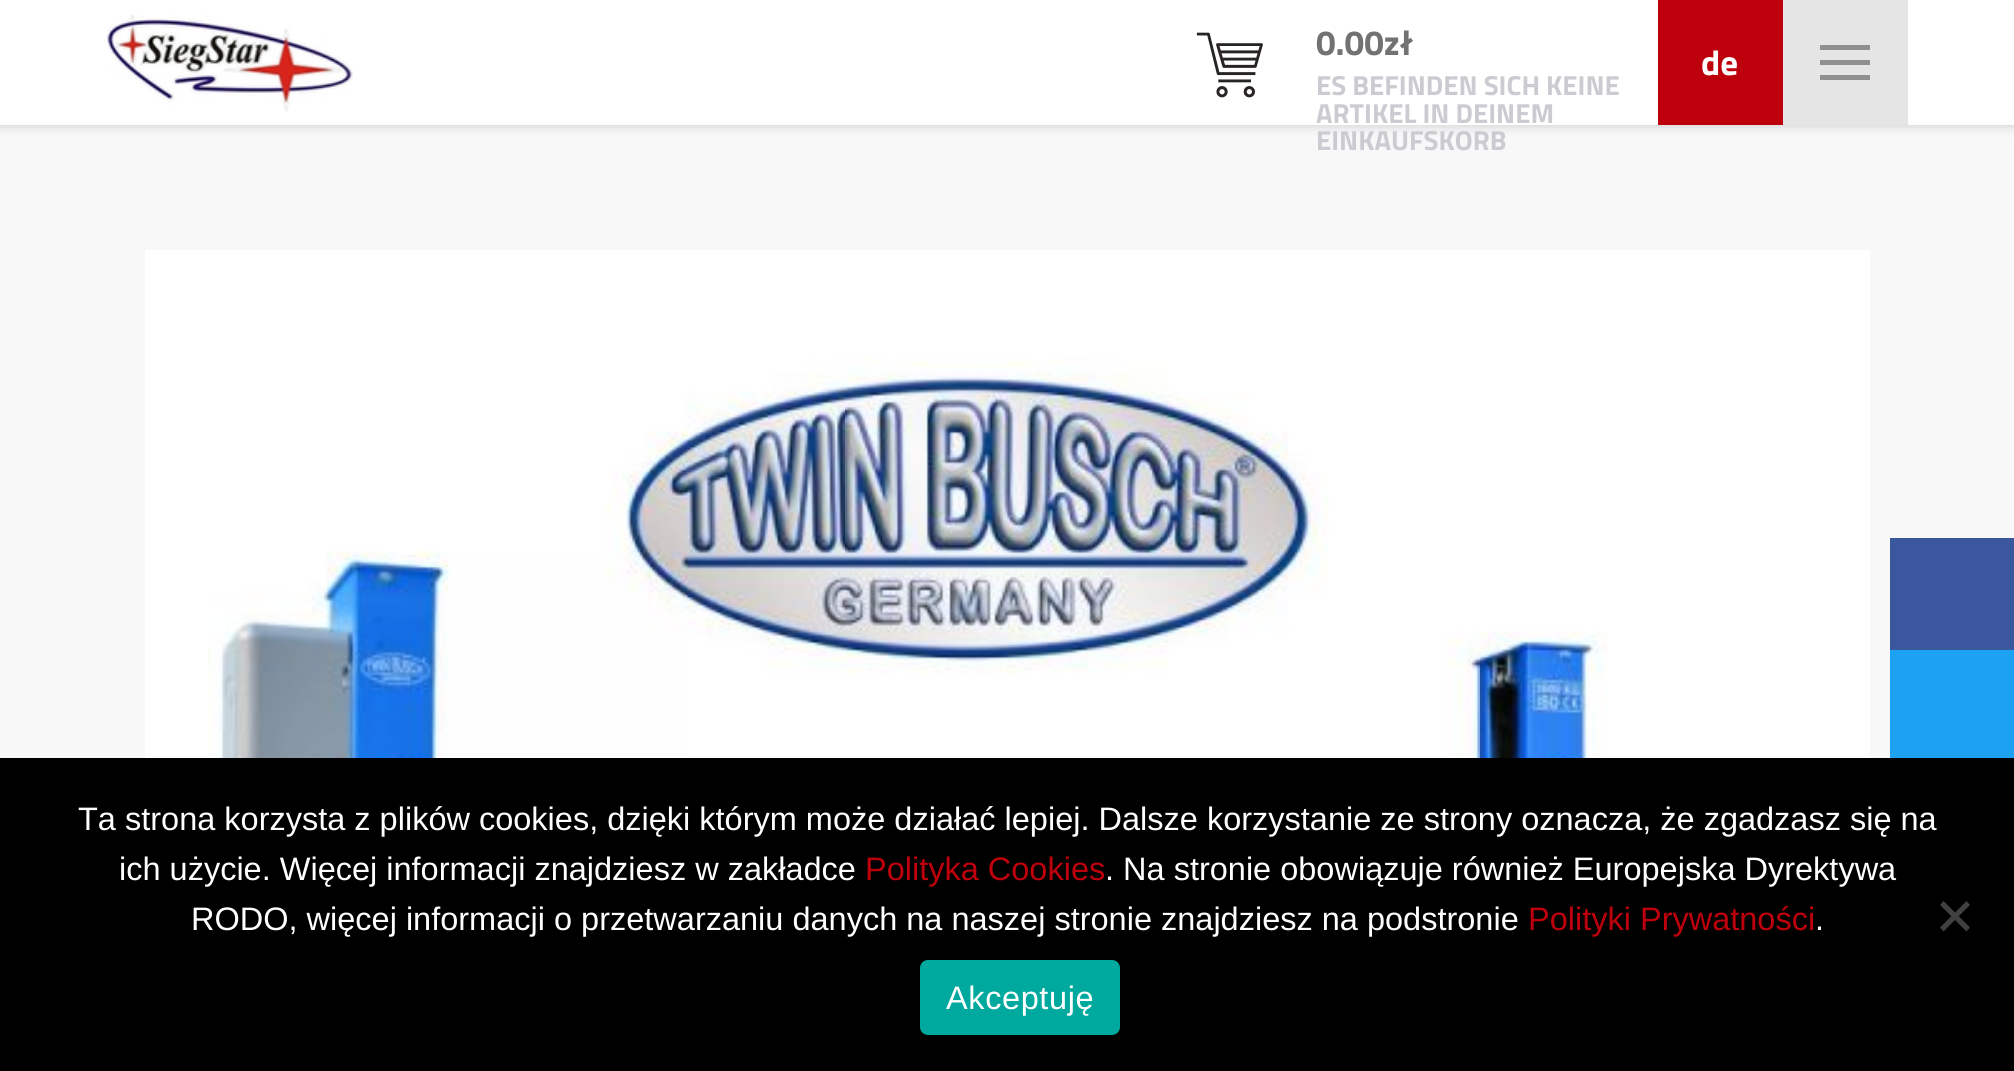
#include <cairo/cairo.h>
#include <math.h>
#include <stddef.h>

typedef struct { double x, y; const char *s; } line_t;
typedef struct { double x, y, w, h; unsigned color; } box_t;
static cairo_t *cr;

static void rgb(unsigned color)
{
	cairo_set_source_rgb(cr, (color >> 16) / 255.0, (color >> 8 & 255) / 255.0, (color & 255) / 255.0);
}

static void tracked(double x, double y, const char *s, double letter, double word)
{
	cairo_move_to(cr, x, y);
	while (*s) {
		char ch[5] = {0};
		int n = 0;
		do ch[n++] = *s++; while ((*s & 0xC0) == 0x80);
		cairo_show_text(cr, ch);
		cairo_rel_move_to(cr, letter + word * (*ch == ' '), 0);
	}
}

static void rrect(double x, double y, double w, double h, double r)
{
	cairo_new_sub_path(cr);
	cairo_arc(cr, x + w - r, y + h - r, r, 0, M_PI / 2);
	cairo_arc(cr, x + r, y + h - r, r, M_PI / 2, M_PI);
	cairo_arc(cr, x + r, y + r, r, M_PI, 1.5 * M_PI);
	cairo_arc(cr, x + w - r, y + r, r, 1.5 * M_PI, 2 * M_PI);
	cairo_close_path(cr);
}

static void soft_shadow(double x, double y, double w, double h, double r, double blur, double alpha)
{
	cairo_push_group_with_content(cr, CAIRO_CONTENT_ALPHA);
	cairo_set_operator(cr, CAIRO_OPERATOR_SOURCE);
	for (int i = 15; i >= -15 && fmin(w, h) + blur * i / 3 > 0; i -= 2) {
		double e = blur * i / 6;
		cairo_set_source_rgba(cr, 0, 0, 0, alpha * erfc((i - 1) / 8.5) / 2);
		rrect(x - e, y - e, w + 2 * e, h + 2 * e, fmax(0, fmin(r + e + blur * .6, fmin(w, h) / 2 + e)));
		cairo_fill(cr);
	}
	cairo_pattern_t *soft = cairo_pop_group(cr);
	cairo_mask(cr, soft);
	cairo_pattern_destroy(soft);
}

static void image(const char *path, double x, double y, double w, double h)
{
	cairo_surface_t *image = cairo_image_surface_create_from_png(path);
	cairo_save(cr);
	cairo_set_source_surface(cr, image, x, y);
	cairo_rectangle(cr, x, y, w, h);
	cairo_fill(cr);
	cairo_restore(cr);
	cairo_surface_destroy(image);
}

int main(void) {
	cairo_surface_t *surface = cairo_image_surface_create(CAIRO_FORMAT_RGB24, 2014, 1071);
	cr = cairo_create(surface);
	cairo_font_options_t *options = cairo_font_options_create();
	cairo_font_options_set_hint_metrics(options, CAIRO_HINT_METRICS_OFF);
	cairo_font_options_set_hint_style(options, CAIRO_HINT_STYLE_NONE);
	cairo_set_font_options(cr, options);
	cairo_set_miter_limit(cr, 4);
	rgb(0xf8f8f8);
	cairo_paint(cr);
	rgb(0x000000);
	soft_shadow(0, 0, 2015, 125, 0, 6, 0.2);
	rgb(0xffffff);
	cairo_rectangle(cr, 0, 0, 2014, 125);
	cairo_fill(cr);
	image("img/1.png", 107, 14, 246, 98);
	image("img/2.png", 1196, 32, 67, 66);
	{
		static const box_t items[] = {
			{1658, 0, 125, 125, 0xbd000b},
			{1783, 0, 125, 125, 0xe5e5e5},
			{1820, 60, 50, 5, 0x909090},
			{1820, 45, 50, 5, 0x909090},
			{1820, 75, 50, 5, 0x909090},
			{145, 250, 1725, 508, 0xffffff},
		};
		for (size_t i = 0; i < sizeof items / sizeof *items; i++) {
			rgb(items[i].color);
			cairo_rectangle(cr, items[i].x, items[i].y, items[i].w, items[i].h);
			cairo_fill(cr);
		}
	}
	image("img/3.png", 208, 357, 1400, 401);
	{
		static const box_t items[] = {
			{1890, 538, 124, 112, 0x3b579d},
			{1890, 650, 124, 108, 0x1da1f2},
			{0, 758, 2014, 313, 0x000000},
		};
		for (size_t i = 0; i < sizeof items / sizeof *items; i++) {
			rgb(items[i].color);
			cairo_rectangle(cr, items[i].x, items[i].y, items[i].w, items[i].h);
			cairo_fill(cr);
		}
	}
	rgb(0x404040);
	cairo_new_path(cr);
	cairo_move_to(cr, 1966.5, 901);
	cairo_line_to(cr, 1970, 905);
	cairo_line_to(cr, 1943.5, 931.5);
	cairo_line_to(cr, 1940, 927.5);
	cairo_close_path(cr);
	cairo_fill(cr);
	cairo_new_path(cr);
	cairo_move_to(cr, 1940, 905);
	cairo_line_to(cr, 1943.5, 901);
	cairo_line_to(cr, 1970, 927.5);
	cairo_line_to(cr, 1966.5, 931.5);
	cairo_close_path(cr);
	cairo_fill(cr);
	rgb(0x00a99d);
	rrect(920, 960, 200, 75, 8);
	cairo_fill(cr);
	cairo_select_font_face(cr, "Titillium Web", CAIRO_FONT_SLANT_NORMAL, CAIRO_FONT_WEIGHT_BOLD);
	cairo_set_font_size(cr, 35);
	rgb(0x727272);
	cairo_move_to(cr, 1316, 55);
	cairo_show_text(cr, "0.00zł");
	cairo_set_font_size(cr, 27.5);
	rgb(0xcccbd1);
	{
		static const line_t items[] = {
			{1316, 95, "ES BEFINDEN SICH KEINE"},
			{1316, 123, "ARTIKEL IN DEINEM"},
			{1316, 150, "EINKAUFSKORB"},
		};
		for (size_t i = 0; i < sizeof items / sizeof *items; i++) {
			cairo_move_to(cr, items[i].x, items[i].y);
			cairo_show_text(cr, items[i].s);
		}
	}
	cairo_set_font_size(cr, 35);
	rgb(0xffffff);
	cairo_move_to(cr, 1701, 75);
	cairo_show_text(cr, "de");
	cairo_select_font_face(cr, "Liberation Sans", CAIRO_FONT_SLANT_NORMAL, CAIRO_FONT_WEIGHT_NORMAL);
	cairo_set_font_size(cr, 32.5);
	cairo_move_to(cr, 78, 830);
	cairo_show_text(cr, "Ta strona korzysta z plików cookies, dzięki którym może działać lepiej. Dalsze korzystanie ze strony oznacza, że zgadzasz się na");
	cairo_move_to(cr, 119, 880);
	cairo_show_text(cr, "ich użycie. Więcej informacji znajdziesz w zakładce");
	rgb(0xbd000b);
	cairo_move_to(cr, 865, 880);
	cairo_show_text(cr, "Polityka Cookies");
	rgb(0xffffff);
	cairo_move_to(cr, 1105, 880);
	cairo_show_text(cr, ". Na stronie obowiązuje również Europejska Dyrektywa");
	cairo_move_to(cr, 191, 930);
	cairo_show_text(cr, "RODO, więcej informacji o przetwarzaniu danych na naszej stronie znajdziesz na podstronie");
	rgb(0xbd000b);
	cairo_move_to(cr, 1528, 930);
	cairo_show_text(cr, "Polityki Prywatności");
	rgb(0xffffff);
	cairo_move_to(cr, 1815, 930);
	cairo_show_text(cr, ".");
	tracked(946, 1009, "Akceptuję", 0.6, 0);
	cairo_surface_write_to_png(surface, "page.png");
	cairo_font_options_destroy(options);
	cairo_destroy(cr);
	cairo_surface_destroy(surface);
	return 0;
}
